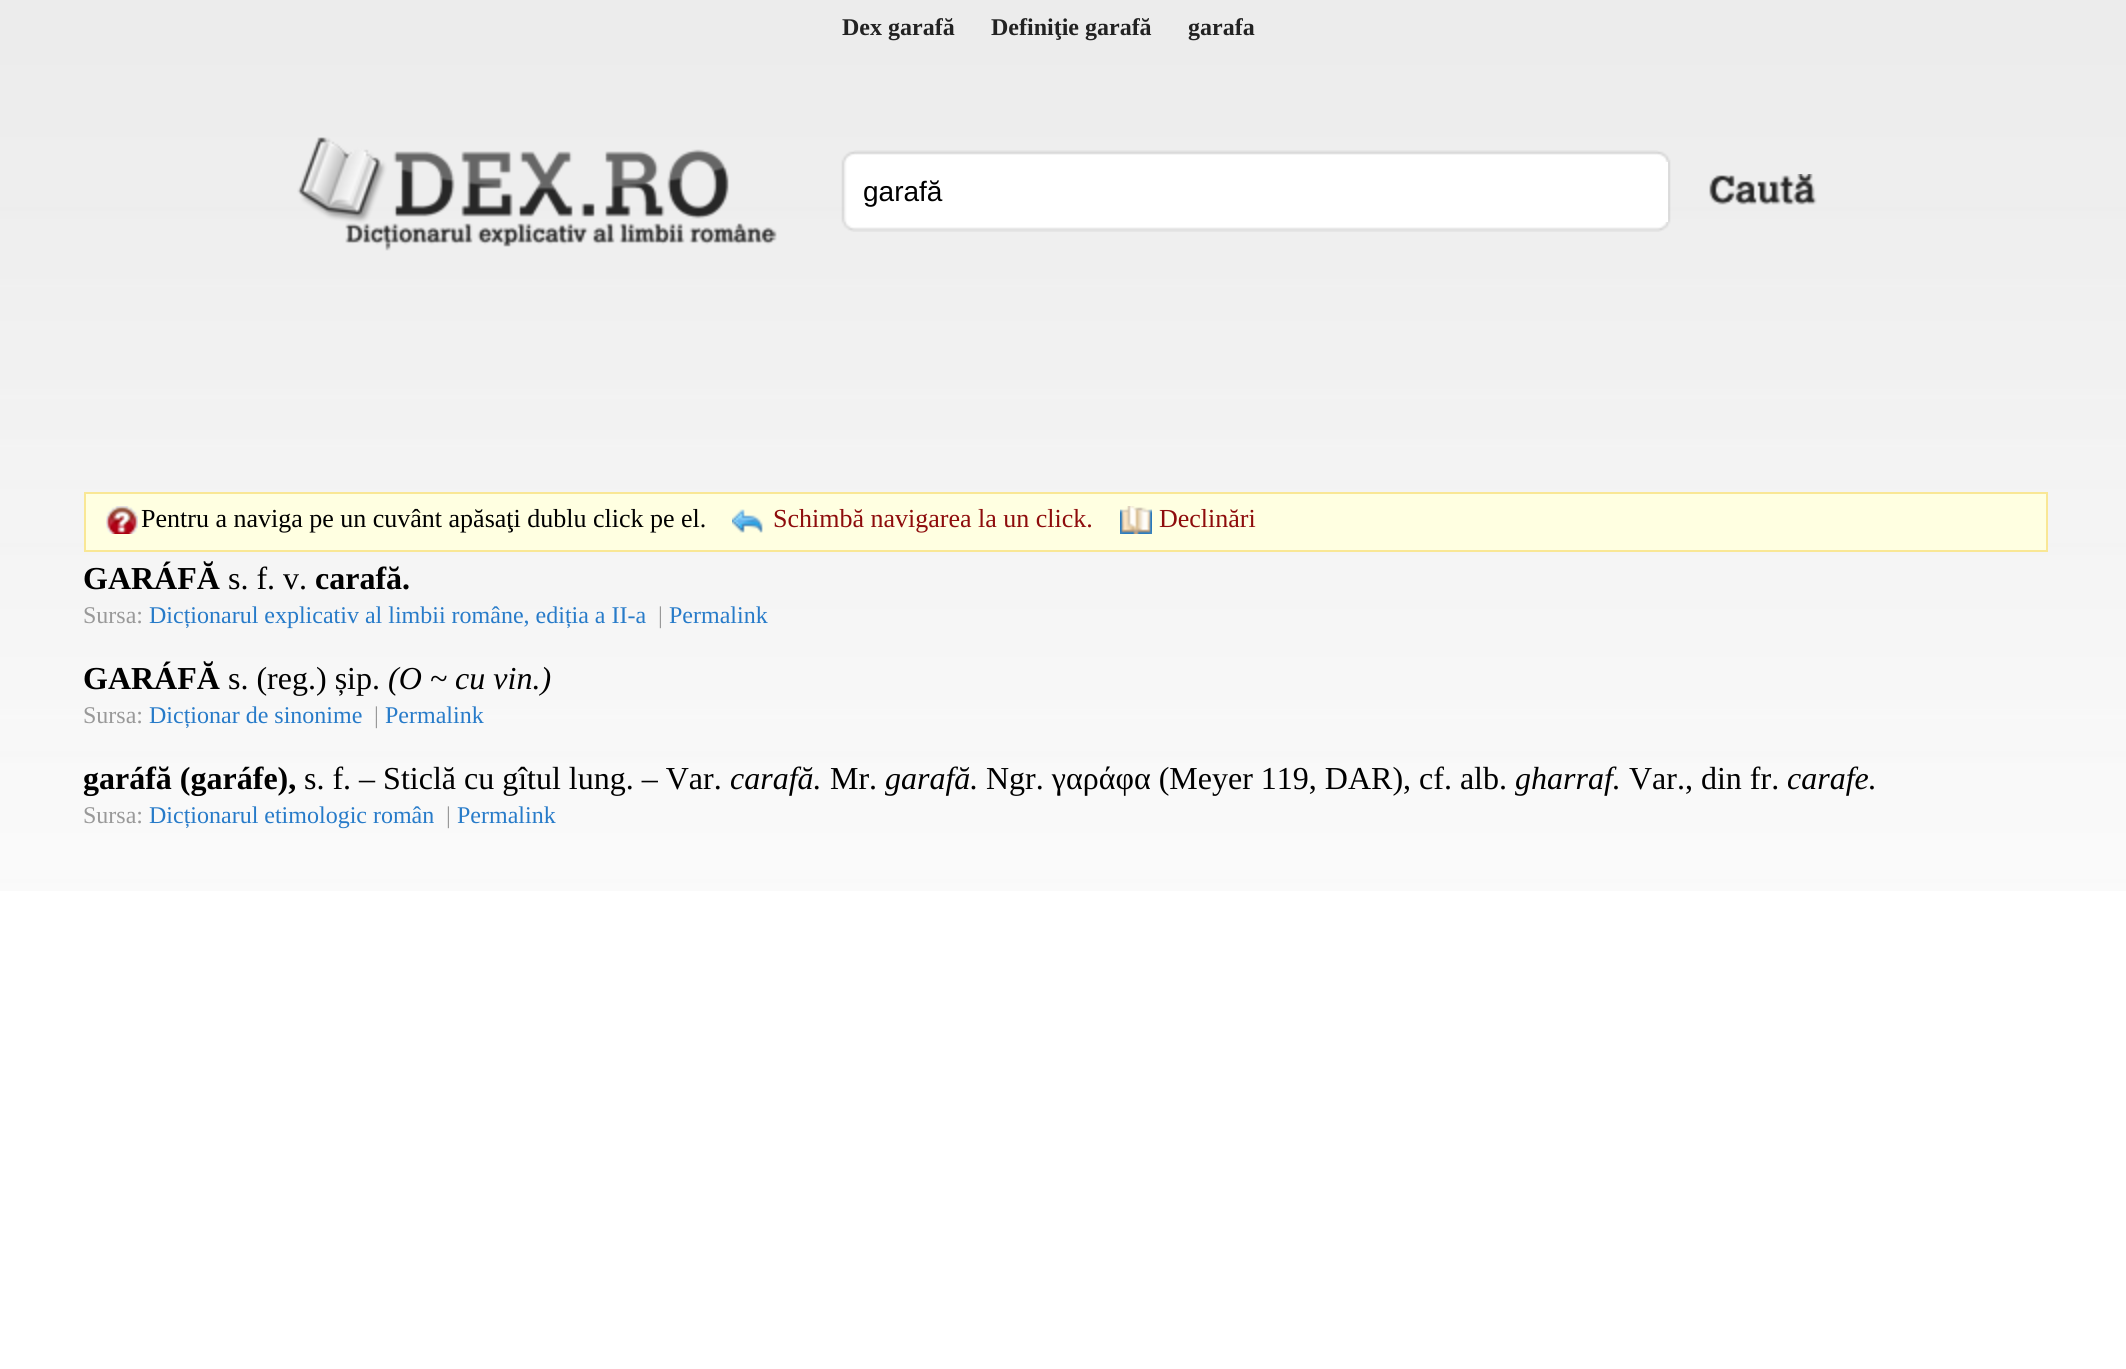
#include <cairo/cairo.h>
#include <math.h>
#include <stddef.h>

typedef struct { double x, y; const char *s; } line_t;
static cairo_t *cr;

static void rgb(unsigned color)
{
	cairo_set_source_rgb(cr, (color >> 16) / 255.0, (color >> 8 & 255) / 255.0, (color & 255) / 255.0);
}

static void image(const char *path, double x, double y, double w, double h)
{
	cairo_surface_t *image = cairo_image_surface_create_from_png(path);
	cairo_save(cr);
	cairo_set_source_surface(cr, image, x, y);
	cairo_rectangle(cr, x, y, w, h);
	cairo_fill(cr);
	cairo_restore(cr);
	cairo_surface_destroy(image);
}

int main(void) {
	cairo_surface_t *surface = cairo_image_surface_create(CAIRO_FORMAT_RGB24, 2126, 1369);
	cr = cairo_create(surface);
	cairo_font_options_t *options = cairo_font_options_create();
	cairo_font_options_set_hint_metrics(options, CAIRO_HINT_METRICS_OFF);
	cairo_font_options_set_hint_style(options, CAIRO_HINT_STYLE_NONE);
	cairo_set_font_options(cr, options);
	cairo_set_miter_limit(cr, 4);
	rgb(0xffffff);
	cairo_paint(cr);
	image("img/1.png", 0, 0, 2126, 891);
	image("img/2.png", 297, 137, 480, 114);
	image("img/3.png", 841, 150, 830, 82);
	rgb(0xffffff);
	cairo_rectangle(cr, 1665, 162, 3, 60);
	cairo_fill(cr);
	image("img/4.png", 1709, 174, 108, 31);
	rgb(0xffffe1);
	cairo_rectangle(cr, 85, 493, 1962, 58);
	cairo_fill_preserve(cr);
	rgb(0xf9e795);
	cairo_stroke(cr);
	image("img/5.png", 106, 506, 32, 28);
	image("img/6.png", 732, 509, 31, 24);
	image("img/7.png", 1120, 506, 32, 28);
	cairo_select_font_face(cr, "Liberation Serif", CAIRO_FONT_SLANT_NORMAL, CAIRO_FONT_WEIGHT_BOLD);
	cairo_set_font_size(cr, 24);
	rgb(0x222222);
	{
		static const line_t items[] = {
			{842, 35, "Dex garafă"},
			{991, 35, "Definiţie garafă"},
			{1188, 35, "garafa"},
		};
		for (size_t i = 0; i < sizeof items / sizeof *items; i++) {
			cairo_move_to(cr, items[i].x, items[i].y);
			cairo_show_text(cr, items[i].s);
		}
	}
	cairo_select_font_face(cr, "Liberation Sans", CAIRO_FONT_SLANT_NORMAL, CAIRO_FONT_WEIGHT_NORMAL);
	cairo_set_font_size(cr, 28);
	rgb(0x000000);
	cairo_move_to(cr, 863, 201);
	cairo_show_text(cr, "garafă");
	cairo_select_font_face(cr, "Liberation Serif", CAIRO_FONT_SLANT_NORMAL, CAIRO_FONT_WEIGHT_NORMAL);
	cairo_set_font_size(cr, 26);
	cairo_move_to(cr, 141, 527);
	cairo_show_text(cr, "Pentru a naviga pe un cuvânt apăsaţi dublu click pe el.");
	rgb(0x8e0c0c);
	cairo_move_to(cr, 773, 527);
	cairo_show_text(cr, "Schimbă navigarea la un click.");
	cairo_move_to(cr, 1159, 527);
	cairo_show_text(cr, "Declinări");
	cairo_select_font_face(cr, "Liberation Serif", CAIRO_FONT_SLANT_NORMAL, CAIRO_FONT_WEIGHT_BOLD);
	cairo_set_font_size(cr, 32);
	rgb(0x000000);
	cairo_move_to(cr, 83, 589);
	cairo_show_text(cr, "GARÁFĂ");
	cairo_select_font_face(cr, "Liberation Serif", CAIRO_FONT_SLANT_NORMAL, CAIRO_FONT_WEIGHT_NORMAL);
	cairo_move_to(cr, 228, 589);
	cairo_show_text(cr, "s. f. v.");
	cairo_select_font_face(cr, "Liberation Serif", CAIRO_FONT_SLANT_NORMAL, CAIRO_FONT_WEIGHT_BOLD);
	cairo_move_to(cr, 315, 589);
	cairo_show_text(cr, "carafă.");
	cairo_select_font_face(cr, "Liberation Serif", CAIRO_FONT_SLANT_NORMAL, CAIRO_FONT_WEIGHT_NORMAL);
	cairo_set_font_size(cr, 24);
	rgb(0x999999);
	cairo_move_to(cr, 83, 623);
	cairo_show_text(cr, "Sursa:");
	rgb(0x277bc9);
	cairo_move_to(cr, 149, 623);
	cairo_show_text(cr, "Dicționarul explicativ al limbii române, ediția a II-a");
	rgb(0x999999);
	cairo_move_to(cr, 658, 623);
	cairo_show_text(cr, "|");
	rgb(0x277bc9);
	cairo_move_to(cr, 669, 623);
	cairo_show_text(cr, "Permalink");
	cairo_select_font_face(cr, "Liberation Serif", CAIRO_FONT_SLANT_NORMAL, CAIRO_FONT_WEIGHT_BOLD);
	cairo_set_font_size(cr, 32);
	rgb(0x000000);
	cairo_move_to(cr, 83, 689);
	cairo_show_text(cr, "GARÁFĂ");
	cairo_select_font_face(cr, "Liberation Serif", CAIRO_FONT_SLANT_NORMAL, CAIRO_FONT_WEIGHT_NORMAL);
	cairo_move_to(cr, 228, 689);
	cairo_show_text(cr, "s. (reg.) șip.");
	cairo_select_font_face(cr, "Liberation Serif", CAIRO_FONT_SLANT_ITALIC, CAIRO_FONT_WEIGHT_NORMAL);
	cairo_move_to(cr, 388, 689);
	cairo_show_text(cr, "(O ~ cu vin.)");
	cairo_select_font_face(cr, "Liberation Serif", CAIRO_FONT_SLANT_NORMAL, CAIRO_FONT_WEIGHT_NORMAL);
	cairo_set_font_size(cr, 24);
	rgb(0x999999);
	cairo_move_to(cr, 83, 723);
	cairo_show_text(cr, "Sursa:");
	rgb(0x277bc9);
	cairo_move_to(cr, 149, 723);
	cairo_show_text(cr, "Dicționar de sinonime");
	rgb(0x999999);
	cairo_move_to(cr, 374, 723);
	cairo_show_text(cr, "|");
	rgb(0x277bc9);
	cairo_move_to(cr, 385, 723);
	cairo_show_text(cr, "Permalink");
	cairo_select_font_face(cr, "Liberation Serif", CAIRO_FONT_SLANT_NORMAL, CAIRO_FONT_WEIGHT_BOLD);
	cairo_set_font_size(cr, 32);
	rgb(0x000000);
	cairo_move_to(cr, 83, 789);
	cairo_show_text(cr, "garáfă (garáfe),");
	cairo_select_font_face(cr, "Liberation Serif", CAIRO_FONT_SLANT_NORMAL, CAIRO_FONT_WEIGHT_NORMAL);
	cairo_move_to(cr, 304, 789);
	cairo_show_text(cr, "s. f. – Sticlă cu gîtul lung. – Var.");
	cairo_select_font_face(cr, "Liberation Serif", CAIRO_FONT_SLANT_ITALIC, CAIRO_FONT_WEIGHT_NORMAL);
	cairo_move_to(cr, 730, 789);
	cairo_show_text(cr, "carafă.");
	cairo_select_font_face(cr, "Liberation Serif", CAIRO_FONT_SLANT_NORMAL, CAIRO_FONT_WEIGHT_NORMAL);
	cairo_move_to(cr, 830, 789);
	cairo_show_text(cr, "Mr.");
	cairo_select_font_face(cr, "Liberation Serif", CAIRO_FONT_SLANT_ITALIC, CAIRO_FONT_WEIGHT_NORMAL);
	cairo_move_to(cr, 885, 789);
	cairo_show_text(cr, "garafă.");
	cairo_select_font_face(cr, "Liberation Serif", CAIRO_FONT_SLANT_NORMAL, CAIRO_FONT_WEIGHT_NORMAL);
	cairo_move_to(cr, 986, 789);
	cairo_show_text(cr, "Ngr. γαράφα (Meyer 119, DAR), cf. alb.");
	cairo_select_font_face(cr, "Liberation Serif", CAIRO_FONT_SLANT_ITALIC, CAIRO_FONT_WEIGHT_NORMAL);
	cairo_move_to(cr, 1515, 789);
	cairo_show_text(cr, "gharraf.");
	cairo_select_font_face(cr, "Liberation Serif", CAIRO_FONT_SLANT_NORMAL, CAIRO_FONT_WEIGHT_NORMAL);
	cairo_move_to(cr, 1629, 789);
	cairo_show_text(cr, "Var., din fr.");
	cairo_select_font_face(cr, "Liberation Serif", CAIRO_FONT_SLANT_ITALIC, CAIRO_FONT_WEIGHT_NORMAL);
	cairo_move_to(cr, 1787, 789);
	cairo_show_text(cr, "carafe.");
	cairo_select_font_face(cr, "Liberation Serif", CAIRO_FONT_SLANT_NORMAL, CAIRO_FONT_WEIGHT_NORMAL);
	cairo_set_font_size(cr, 24);
	rgb(0x999999);
	cairo_move_to(cr, 83, 823);
	cairo_show_text(cr, "Sursa:");
	rgb(0x277bc9);
	cairo_move_to(cr, 149, 823);
	cairo_show_text(cr, "Dicționarul etimologic român");
	rgb(0x999999);
	cairo_move_to(cr, 446, 823);
	cairo_show_text(cr, "|");
	rgb(0x277bc9);
	cairo_move_to(cr, 457, 823);
	cairo_show_text(cr, "Permalink");
	cairo_surface_write_to_png(surface, "page.png");
	cairo_font_options_destroy(options);
	cairo_destroy(cr);
	cairo_surface_destroy(surface);
	return 0;
}
